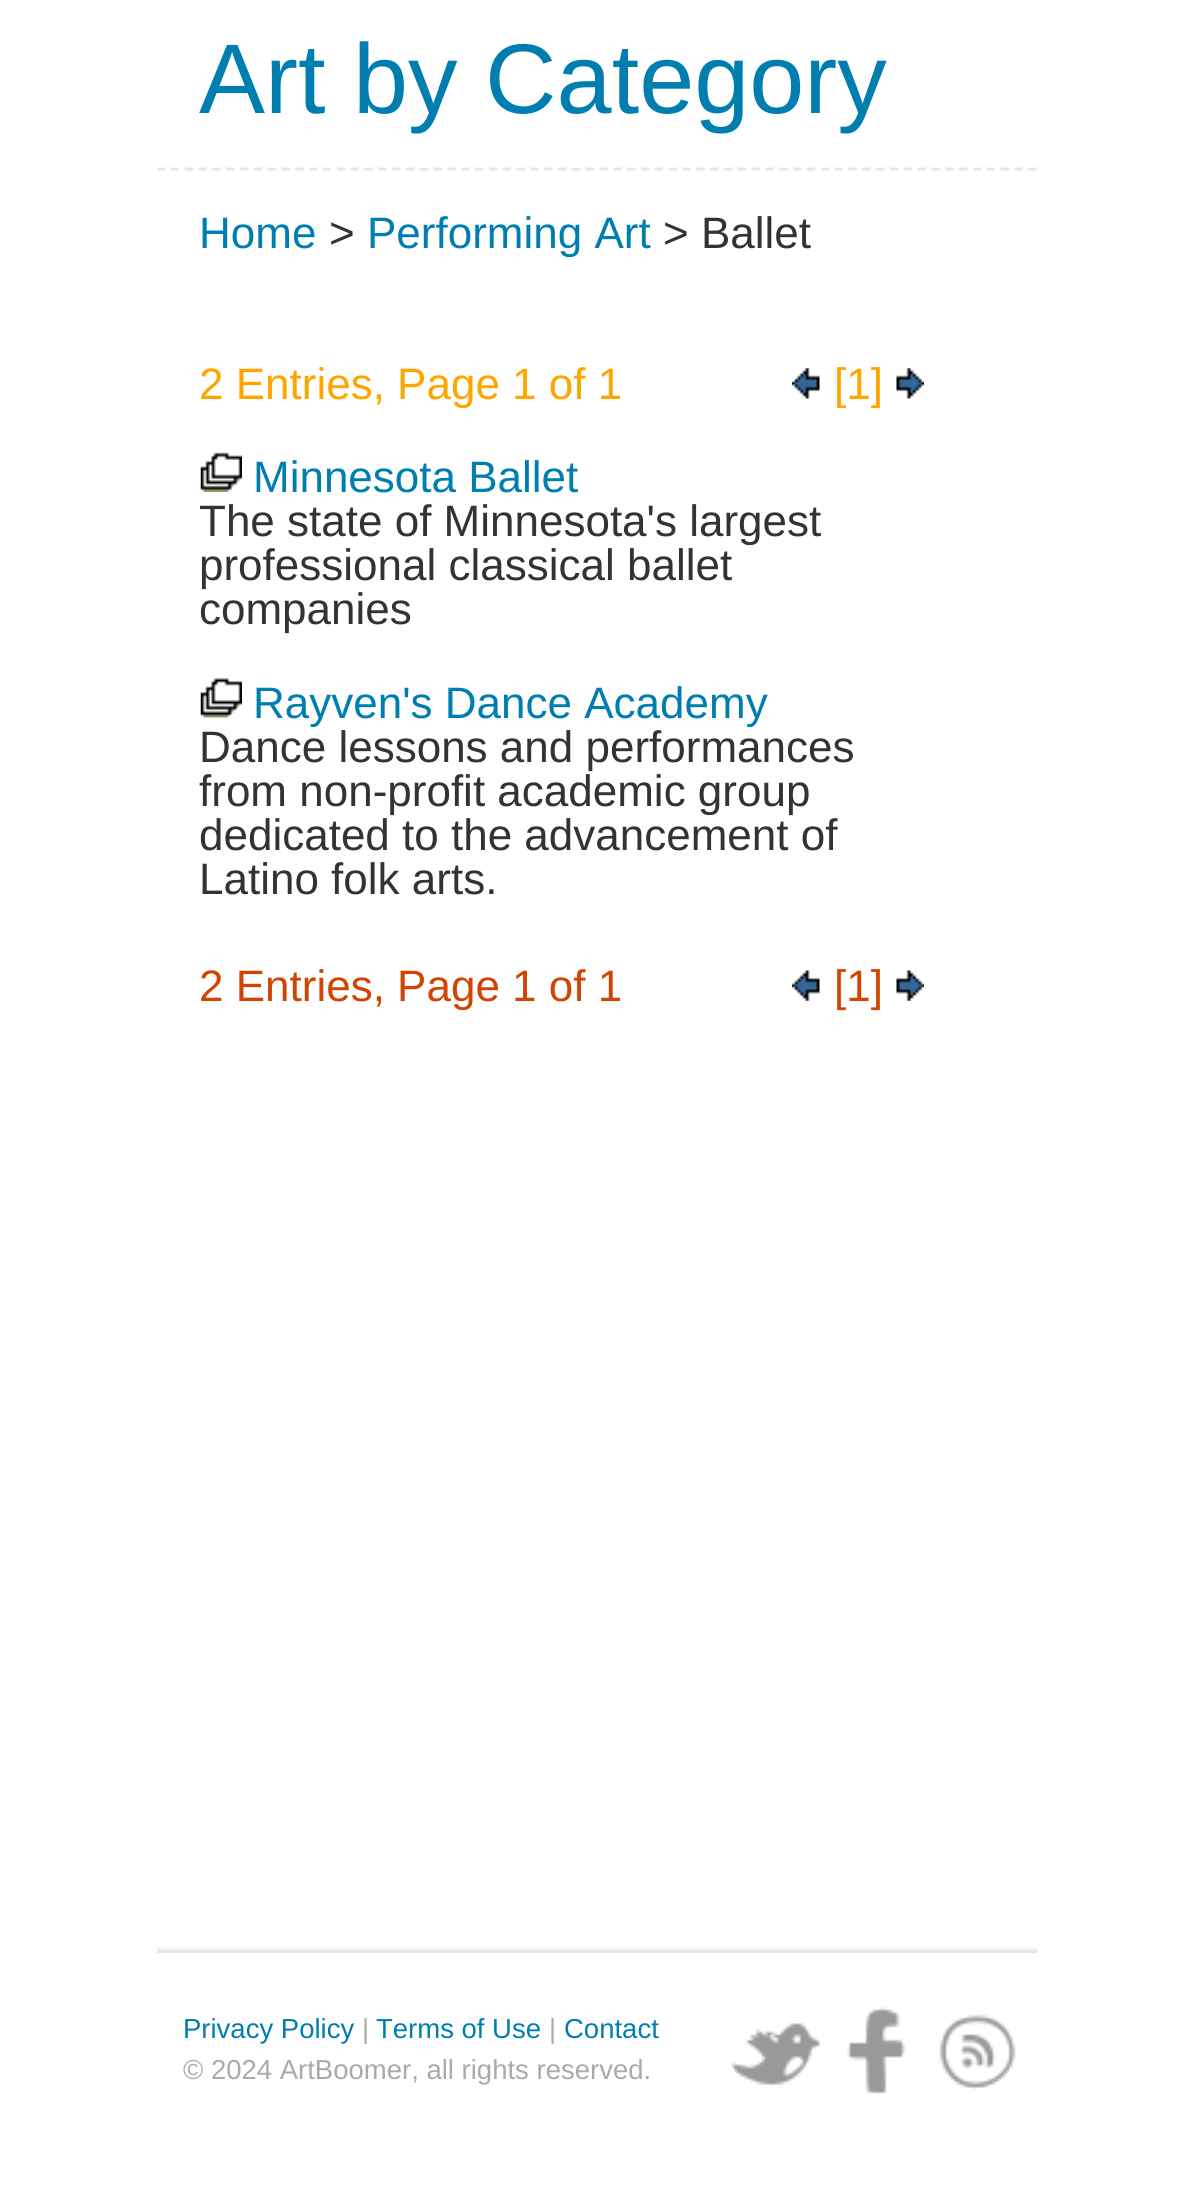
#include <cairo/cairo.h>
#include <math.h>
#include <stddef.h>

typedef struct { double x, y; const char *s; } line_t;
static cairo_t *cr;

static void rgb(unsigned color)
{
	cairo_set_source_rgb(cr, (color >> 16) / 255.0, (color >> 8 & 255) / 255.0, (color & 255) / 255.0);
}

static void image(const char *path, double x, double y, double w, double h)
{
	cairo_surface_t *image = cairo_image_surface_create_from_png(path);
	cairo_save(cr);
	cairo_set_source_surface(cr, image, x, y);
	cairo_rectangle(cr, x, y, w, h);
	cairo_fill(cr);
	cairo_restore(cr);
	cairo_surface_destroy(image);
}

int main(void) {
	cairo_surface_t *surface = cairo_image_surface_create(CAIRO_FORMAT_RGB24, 1189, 2198);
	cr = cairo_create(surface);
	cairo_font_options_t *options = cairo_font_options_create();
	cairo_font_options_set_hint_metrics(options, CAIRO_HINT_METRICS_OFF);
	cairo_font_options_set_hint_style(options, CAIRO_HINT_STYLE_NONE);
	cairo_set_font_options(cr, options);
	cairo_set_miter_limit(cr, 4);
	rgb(0xffffff);
	cairo_paint(cr);
	cairo_new_path(cr);
	cairo_move_to(cr, 157, 169);
	cairo_line_to(cr, 1037, 169);
	rgb(0xe5e5e5);
	cairo_set_line_width(cr, 2.8);
	cairo_set_dash(cr, (double[]){8.25, 5.58}, 2, 0);
	cairo_stroke(cr);
	image("img/1.png", 792, 368, 28, 31);
	image("img/2.png", 896, 368, 28, 31);
	image("img/3.png", 200, 452, 42, 40);
	image("img/4.png", 200, 678, 42, 40);
	image("img/5.png", 792, 970, 28, 31);
	image("img/6.png", 896, 970, 28, 31);
	rgb(0xf5f5f5);
	cairo_new_path(cr);
	cairo_move_to(cr, 157, 1947);
	cairo_line_to(cr, 157, 1950);
	cairo_line_to(cr, 1037, 1950);
	cairo_line_to(cr, 1037, 2197);
	cairo_line_to(cr, 1037, 1947);
	cairo_close_path(cr);
	cairo_fill(cr);
	rgb(0xe5e5e5);
	cairo_rectangle(cr, 157, 1950, 880, 3);
	cairo_fill(cr);
	image("img/7.png", 731, 2023, 89, 63);
	image("img/8.png", 847, 2007, 59, 87);
	image("img/9.png", 939, 2014, 77, 76);
	cairo_select_font_face(cr, "Liberation Sans", CAIRO_FONT_SLANT_NORMAL, CAIRO_FONT_WEIGHT_NORMAL);
	cairo_set_font_size(cr, 99);
	rgb(0x007eb0);
	cairo_move_to(cr, 199, 113);
	cairo_show_text(cr, "Art by Category");
	cairo_set_font_size(cr, 44);
	cairo_move_to(cr, 199, 248);
	cairo_show_text(cr, "Home");
	rgb(0x333333);
	cairo_move_to(cr, 329, 248);
	cairo_show_text(cr, ">");
	rgb(0x007eb0);
	cairo_move_to(cr, 367, 248);
	cairo_show_text(cr, "Performing Art");
	rgb(0x333333);
	cairo_move_to(cr, 663, 248);
	cairo_show_text(cr, "> Ballet");
	rgb(0xffa500);
	cairo_move_to(cr, 199, 399);
	cairo_show_text(cr, "2 Entries, Page 1 of 1");
	cairo_move_to(cr, 834, 399);
	cairo_show_text(cr, "[1]");
	rgb(0x007eb0);
	cairo_move_to(cr, 253, 492);
	cairo_show_text(cr, "Minnesota Ballet");
	rgb(0x333333);
	{
		static const line_t items[] = {
			{199, 536, "The state of Minnesota's largest"},
			{199, 580, "professional classical ballet"},
			{199, 624, "companies"},
		};
		for (size_t i = 0; i < sizeof items / sizeof *items; i++) {
			cairo_move_to(cr, items[i].x, items[i].y);
			cairo_show_text(cr, items[i].s);
		}
	}
	rgb(0x007eb0);
	cairo_move_to(cr, 253, 718);
	cairo_show_text(cr, "Rayven's Dance Academy");
	rgb(0x333333);
	{
		static const line_t items[] = {
			{199, 762, "Dance lessons and performances"},
			{199, 806, "from non-profit academic group"},
			{199, 850, "dedicated to the advancement of"},
			{199, 894, "Latino folk arts."},
		};
		for (size_t i = 0; i < sizeof items / sizeof *items; i++) {
			cairo_move_to(cr, items[i].x, items[i].y);
			cairo_show_text(cr, items[i].s);
		}
	}
	rgb(0xd24400);
	cairo_move_to(cr, 199, 1001);
	cairo_show_text(cr, "2 Entries, Page 1 of 1");
	cairo_move_to(cr, 834, 1001);
	cairo_show_text(cr, "[1]");
	cairo_set_font_size(cr, 27.5);
	rgb(0x007eb0);
	cairo_move_to(cr, 183, 2038);
	cairo_show_text(cr, "Privacy Policy");
	rgb(0xaaaaaa);
	cairo_move_to(cr, 362, 2038);
	cairo_show_text(cr, "|");
	rgb(0x007eb0);
	cairo_move_to(cr, 376, 2038);
	cairo_show_text(cr, "Terms of Use");
	rgb(0xaaaaaa);
	cairo_move_to(cr, 549, 2038);
	cairo_show_text(cr, "|");
	rgb(0x007eb0);
	cairo_move_to(cr, 564, 2038);
	cairo_show_text(cr, "Contact");
	rgb(0xaaaaaa);
	cairo_move_to(cr, 183, 2079);
	cairo_show_text(cr, "© 2024 ArtBoomer, all rights reserved.");
	cairo_surface_write_to_png(surface, "page.png");
	cairo_font_options_destroy(options);
	cairo_destroy(cr);
	cairo_surface_destroy(surface);
	return 0;
}
